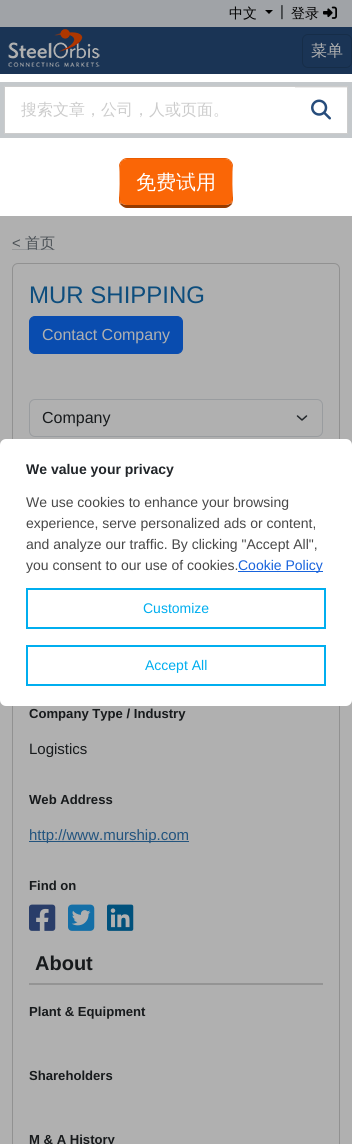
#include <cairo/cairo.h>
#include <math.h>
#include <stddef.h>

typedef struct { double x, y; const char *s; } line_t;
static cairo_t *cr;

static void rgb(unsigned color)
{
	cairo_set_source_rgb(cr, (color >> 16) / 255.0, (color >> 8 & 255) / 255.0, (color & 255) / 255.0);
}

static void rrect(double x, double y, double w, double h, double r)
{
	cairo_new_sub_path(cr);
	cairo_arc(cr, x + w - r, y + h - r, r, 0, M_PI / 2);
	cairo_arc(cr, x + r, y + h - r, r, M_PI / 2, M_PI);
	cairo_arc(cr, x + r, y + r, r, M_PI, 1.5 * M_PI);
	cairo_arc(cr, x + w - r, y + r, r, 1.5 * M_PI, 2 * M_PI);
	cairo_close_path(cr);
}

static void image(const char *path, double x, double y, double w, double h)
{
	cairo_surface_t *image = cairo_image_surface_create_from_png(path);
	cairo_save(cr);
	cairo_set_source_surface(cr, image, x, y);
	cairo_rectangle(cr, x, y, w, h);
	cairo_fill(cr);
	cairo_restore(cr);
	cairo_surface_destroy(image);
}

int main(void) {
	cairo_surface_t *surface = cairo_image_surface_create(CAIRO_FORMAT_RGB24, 352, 1144);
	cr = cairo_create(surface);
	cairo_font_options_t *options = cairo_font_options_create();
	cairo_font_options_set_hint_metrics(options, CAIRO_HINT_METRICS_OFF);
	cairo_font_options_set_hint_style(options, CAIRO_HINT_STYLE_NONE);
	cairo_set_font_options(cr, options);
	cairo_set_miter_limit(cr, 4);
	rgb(0xb0b0b0);
	cairo_paint(cr);
	rgb(0xa0a3a7);
	cairo_rectangle(cr, 0, 0, 352, 27);
	cairo_fill(cr);
	rgb(0x000000);
	cairo_new_path(cr);
	cairo_move_to(cr, 265, 10);
	cairo_line_to(cr, 273, 10);
	cairo_line_to(cr, 269, 14);
	cairo_close_path(cr);
	cairo_fill(cr);
	image("img/1.png", 323, 6, 14, 13);
	rgb(0x1a3455);
	cairo_rectangle(cr, 0, 27, 352, 47);
	cairo_fill(cr);
	image("img/2.png", 8, 29, 92, 38);
	rrect(302.5, 34.5, 49, 33, 5.5);
	rgb(0x162d48);
	cairo_set_line_width(cr, 1);
	cairo_stroke(cr);
	rgb(0xffffff);
	cairo_rectangle(cr, 0, 74, 352, 142);
	cairo_fill(cr);
	cairo_rectangle(cr, 2, 84, 348, 52);
	rgb(0xc4c8cb);
	cairo_set_line_width(cr, 4);
	cairo_stroke(cr);
	cairo_rectangle(cr, 4.5, 86.5, 343, 47);
	rgb(0xcccccc);
	cairo_set_line_width(cr, 1);
	cairo_stroke(cr);
	rgb(0xececec);
	cairo_rectangle(cr, 295, 87, 52, 1);
	cairo_fill(cr);
	image("img/3.png", 311, 99, 20, 21);
	rgb(0xfa6606);
	cairo_new_path(cr);
	cairo_move_to(cr, 127, 159);
	cairo_line_to(cr, 225, 159);
	cairo_curve_to(cr, 229, 159, 232, 162, 232, 166);
	cairo_line_to(cr, 232, 200);
	cairo_curve_to(cr, 232, 203, 229, 205, 225, 205);
	cairo_line_to(cr, 127, 205);
	cairo_curve_to(cr, 123, 205, 120, 203, 120, 200);
	cairo_line_to(cr, 120, 166);
	cairo_curve_to(cr, 120, 162, 123, 159, 127, 159);
	cairo_close_path(cr);
	cairo_fill(cr);
	rgb(0xea5c00);
	cairo_new_path(cr);
	cairo_move_to(cr, 127, 158);
	cairo_curve_to(cr, 125, 158, 123, 159, 122, 160);
	cairo_line_to(cr, 122, 161);
	cairo_curve_to(cr, 123, 160, 125, 159, 127, 159);
	cairo_line_to(cr, 225, 159);
	cairo_curve_to(cr, 227, 159, 229, 160, 230, 161);
	cairo_line_to(cr, 230, 160);
	cairo_curve_to(cr, 229, 159, 227, 158, 225, 158);
	cairo_close_path(cr);
	cairo_fill(cr);
	cairo_new_path(cr);
	cairo_move_to(cr, 233, 200);
	cairo_line_to(cr, 233, 166);
	cairo_curve_to(cr, 233, 164, 232, 162, 230, 160);
	cairo_line_to(cr, 230, 161);
	cairo_line_to(cr, 232, 165);
	cairo_curve_to(cr, 233, 168, 233, 200, 231, 203);
	cairo_line_to(cr, 232, 204);
	cairo_close_path(cr);
	cairo_fill(cr);
	rgb(0x963b00);
	cairo_new_path(cr);
	cairo_move_to(cr, 127, 208);
	cairo_line_to(cr, 225, 208);
	cairo_curve_to(cr, 228, 208, 230, 206, 232, 204);
	cairo_line_to(cr, 231, 203);
	cairo_curve_to(cr, 230, 204, 228, 205, 225, 205);
	cairo_line_to(cr, 127, 205);
	cairo_curve_to(cr, 124, 205, 122, 204, 121, 203);
	cairo_line_to(cr, 120, 204);
	cairo_curve_to(cr, 122, 206, 124, 208, 127, 208);
	cairo_close_path(cr);
	cairo_fill(cr);
	rgb(0xea5c00);
	cairo_new_path(cr);
	cairo_move_to(cr, 119, 166);
	cairo_line_to(cr, 119, 200);
	cairo_curve_to(cr, 119, 201, 119, 203, 120, 204);
	cairo_line_to(cr, 121, 203);
	cairo_curve_to(cr, 119, 200, 119, 168, 120, 165);
	cairo_line_to(cr, 122, 161);
	cairo_line_to(cr, 122, 160);
	cairo_curve_to(cr, 120, 162, 119, 164, 119, 166);
	cairo_close_path(cr);
	cairo_fill(cr);
	rgb(0x96989a);
	cairo_rectangle(cr, 12, 249, 43, 1);
	cairo_fill(cr);
	rrect(12.5, 263.5, 327, 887, 5.5);
	rgb(0x919191);
	cairo_stroke(cr);
	rgb(0x094caf);
	rrect(29.5, 316.5, 153, 37, 5.5);
	cairo_fill_preserve(cr);
	cairo_stroke(cr);
	cairo_new_path(cr);
	cairo_move_to(cr, 297.5, 416);
	cairo_line_to(cr, 302, 420);
	cairo_line_to(cr, 306.5, 416);
	rgb(0x24282c);
	cairo_set_line_width(cr, 1.5);
	cairo_set_line_cap(cr, CAIRO_LINE_CAP_ROUND);
	cairo_set_line_join(cr, CAIRO_LINE_JOIN_ROUND);
	cairo_stroke(cr);
	rrect(29.5, 399.5, 293, 37, 5.5);
	rgb(0x999c9f);
	cairo_set_line_width(cr, 1);
	cairo_set_line_cap(cr, CAIRO_LINE_CAP_BUTT);
	cairo_set_line_join(cr, CAIRO_LINE_JOIN_MITER);
	cairo_stroke(cr);
	rgb(0x23547e);
	cairo_rectangle(cr, 29, 841, 160, 1);
	cairo_fill(cr);
	image("img/4.png", 29, 904, 27, 27);
	image("img/5.png", 68, 904, 27, 27);
	image("img/6.png", 107, 904, 27, 27);
	rgb(0x949494);
	cairo_rectangle(cr, 29, 983, 294, 2);
	cairo_fill(cr);
	rgb(0xffffff);
	rrect(0, 439, 352, 267, 6);
	cairo_fill(cr);
	rgb(0x1863dc);
	cairo_rectangle(cr, 238, 571, 85, 1);
	cairo_fill(cr);
	cairo_rectangle(cr, 27, 589, 298, 39);
	rgb(0x00aeef);
	cairo_set_line_width(cr, 2);
	cairo_stroke(cr);
	cairo_rectangle(cr, 27, 646, 298, 39);
	cairo_stroke(cr);
	cairo_select_font_face(cr, "WenQuanYi Zen Hei Medium", CAIRO_FONT_SLANT_NORMAL, CAIRO_FONT_WEIGHT_NORMAL);
	cairo_set_font_size(cr, 14);
	rgb(0x000000);
	cairo_move_to(cr, 229, 18);
	cairo_show_text(cr, "中文");
	cairo_select_font_face(cr, "Liberation Sans", CAIRO_FONT_SLANT_NORMAL, CAIRO_FONT_WEIGHT_NORMAL);
	cairo_set_font_size(cr, 15);
	rgb(0x171a1c);
	cairo_move_to(cr, 280, 16);
	cairo_show_text(cr, "|");
	cairo_select_font_face(cr, "WenQuanYi Zen Hei Medium", CAIRO_FONT_SLANT_NORMAL, CAIRO_FONT_WEIGHT_NORMAL);
	cairo_set_font_size(cr, 14);
	rgb(0x000000);
	cairo_move_to(cr, 291, 18);
	cairo_show_text(cr, "登录");
	cairo_set_font_size(cr, 16);
	rgb(0xb0b0b0);
	cairo_move_to(cr, 311, 56);
	cairo_show_text(cr, "菜单");
	rgb(0xcccccc);
	cairo_move_to(cr, 21, 115);
	cairo_show_text(cr, "搜索文章，公司，人或页面。");
	cairo_set_font_size(cr, 20);
	rgb(0xffffff);
	cairo_move_to(cr, 136, 189);
	cairo_show_text(cr, "免费试用");
	cairo_select_font_face(cr, "Liberation Sans", CAIRO_FONT_SLANT_NORMAL, CAIRO_FONT_WEIGHT_NORMAL);
	cairo_set_font_size(cr, 15);
	rgb(0x4b5156);
	cairo_move_to(cr, 12, 248);
	cairo_show_text(cr, "<");
	cairo_select_font_face(cr, "WenQuanYi Zen Hei Medium", CAIRO_FONT_SLANT_NORMAL, CAIRO_FONT_WEIGHT_NORMAL);
	cairo_move_to(cr, 25, 248);
	cairo_show_text(cr, "首页");
	cairo_select_font_face(cr, "Liberation Sans", CAIRO_FONT_SLANT_NORMAL, CAIRO_FONT_WEIGHT_NORMAL);
	cairo_set_font_size(cr, 24);
	rgb(0x0d4d7d);
	cairo_move_to(cr, 29, 303);
	cairo_show_text(cr, "MUR SHIPPING");
	cairo_set_font_size(cr, 16);
	rgb(0xb0b0b0);
	cairo_move_to(cr, 42, 340);
	cairo_show_text(cr, "Contact Company");
	rgb(0x171a1c);
	cairo_move_to(cr, 42, 423);
	cairo_show_text(cr, "Company");
	cairo_select_font_face(cr, "Liberation Sans", CAIRO_FONT_SLANT_NORMAL, CAIRO_FONT_WEIGHT_BOLD);
	cairo_set_font_size(cr, 13.1);
	cairo_move_to(cr, 29, 718);
	cairo_show_text(cr, "Company Type / Industry");
	cairo_select_font_face(cr, "Liberation Sans", CAIRO_FONT_SLANT_NORMAL, CAIRO_FONT_WEIGHT_NORMAL);
	cairo_set_font_size(cr, 15);
	cairo_move_to(cr, 29, 754);
	cairo_show_text(cr, "Logistics");
	cairo_select_font_face(cr, "Liberation Sans", CAIRO_FONT_SLANT_NORMAL, CAIRO_FONT_WEIGHT_BOLD);
	cairo_set_font_size(cr, 13.1);
	cairo_move_to(cr, 29, 804);
	cairo_show_text(cr, "Web Address");
	cairo_select_font_face(cr, "Liberation Sans", CAIRO_FONT_SLANT_NORMAL, CAIRO_FONT_WEIGHT_NORMAL);
	cairo_set_font_size(cr, 15);
	rgb(0x23547e);
	cairo_move_to(cr, 29, 840);
	cairo_show_text(cr, "http://www.murship.com");
	cairo_select_font_face(cr, "Liberation Sans", CAIRO_FONT_SLANT_NORMAL, CAIRO_FONT_WEIGHT_BOLD);
	cairo_set_font_size(cr, 13.1);
	rgb(0x171a1c);
	cairo_move_to(cr, 29, 890);
	cairo_show_text(cr, "Find on");
	cairo_set_font_size(cr, 20);
	cairo_move_to(cr, 35, 970);
	cairo_show_text(cr, "About");
	cairo_set_font_size(cr, 13.1);
	{
		static const line_t items[] = {
			{29, 1016, "Plant & Equipment"},
			{29, 1080, "Shareholders"},
			{29, 1144, "M & A History"},
		};
		for (size_t i = 0; i < sizeof items / sizeof *items; i++) {
			cairo_move_to(cr, items[i].x, items[i].y);
			cairo_show_text(cr, items[i].s);
		}
	}
	cairo_set_font_size(cr, 14);
	rgb(0x212529);
	cairo_move_to(cr, 26, 474);
	cairo_show_text(cr, "We value your privacy");
	cairo_select_font_face(cr, "Liberation Sans", CAIRO_FONT_SLANT_NORMAL, CAIRO_FONT_WEIGHT_NORMAL);
	rgb(0x484848);
	{
		static const line_t items[] = {
			{26, 507, "We use cookies to enhance your browsing"},
			{26, 528, "experience, serve personalized ads or content,"},
			{26, 549, "and analyze our traffic. By clicking \"Accept All\","},
			{26, 570, "you consent to our use of cookies."},
		};
		for (size_t i = 0; i < sizeof items / sizeof *items; i++) {
			cairo_move_to(cr, items[i].x, items[i].y);
			cairo_show_text(cr, items[i].s);
		}
	}
	rgb(0x1863dc);
	cairo_move_to(cr, 238, 570);
	cairo_show_text(cr, "Cookie Policy");
	rgb(0x00aeef);
	cairo_move_to(cr, 143, 613);
	cairo_show_text(cr, "Customize");
	cairo_move_to(cr, 145, 670);
	cairo_show_text(cr, "Accept All");
	cairo_surface_write_to_png(surface, "page.png");
	cairo_font_options_destroy(options);
	cairo_destroy(cr);
	cairo_surface_destroy(surface);
	return 0;
}
